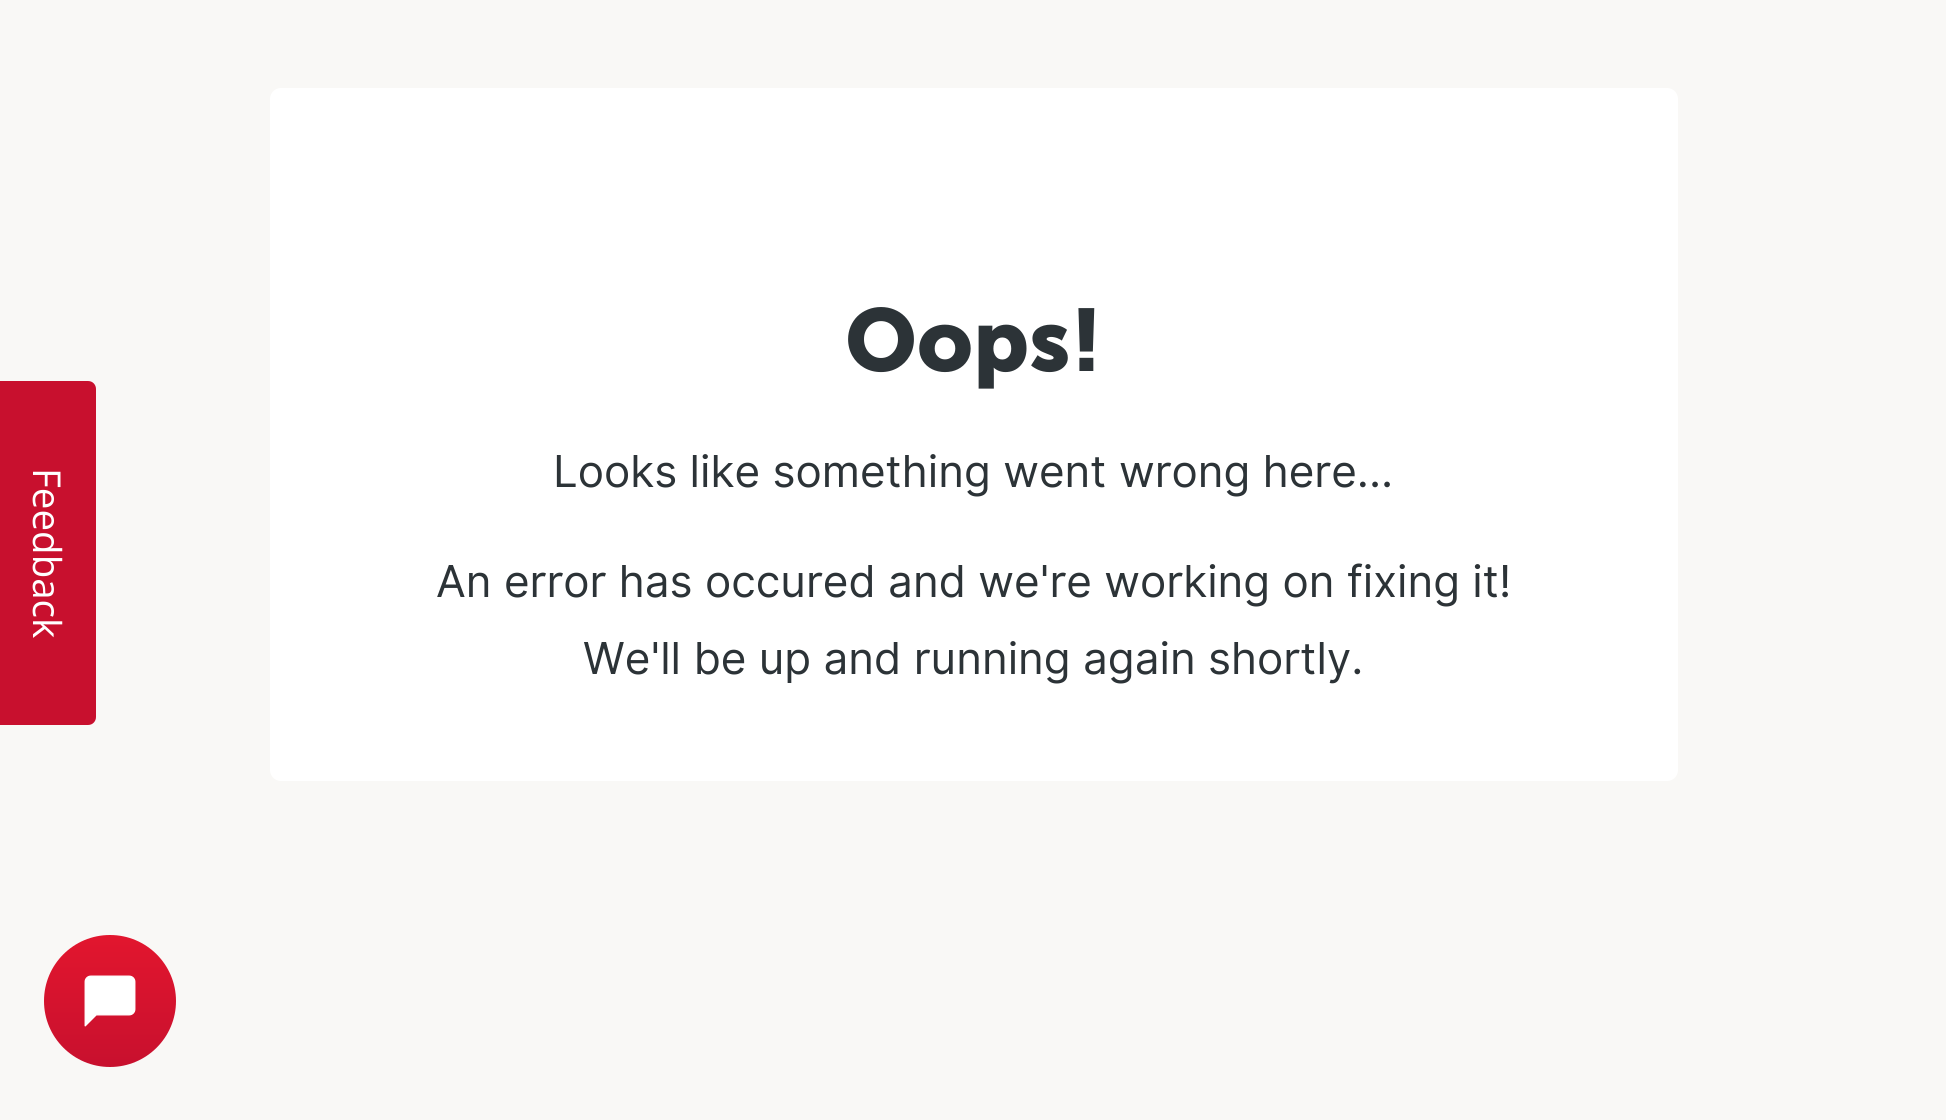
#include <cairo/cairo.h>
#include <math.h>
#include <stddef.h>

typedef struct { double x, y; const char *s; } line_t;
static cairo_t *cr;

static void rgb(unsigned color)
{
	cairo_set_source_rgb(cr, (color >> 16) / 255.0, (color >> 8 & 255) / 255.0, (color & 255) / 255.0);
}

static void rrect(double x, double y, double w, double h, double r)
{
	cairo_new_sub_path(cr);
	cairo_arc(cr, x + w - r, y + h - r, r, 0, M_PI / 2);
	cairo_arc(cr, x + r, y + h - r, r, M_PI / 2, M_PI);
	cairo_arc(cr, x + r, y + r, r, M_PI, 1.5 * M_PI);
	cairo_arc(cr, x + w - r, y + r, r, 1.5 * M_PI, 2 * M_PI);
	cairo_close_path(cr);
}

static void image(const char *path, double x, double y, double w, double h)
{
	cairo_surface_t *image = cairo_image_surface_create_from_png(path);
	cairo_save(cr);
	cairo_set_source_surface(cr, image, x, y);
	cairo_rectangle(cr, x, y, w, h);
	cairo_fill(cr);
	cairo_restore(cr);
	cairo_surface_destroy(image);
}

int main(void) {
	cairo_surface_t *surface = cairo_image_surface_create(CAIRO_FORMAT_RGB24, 1946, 1120);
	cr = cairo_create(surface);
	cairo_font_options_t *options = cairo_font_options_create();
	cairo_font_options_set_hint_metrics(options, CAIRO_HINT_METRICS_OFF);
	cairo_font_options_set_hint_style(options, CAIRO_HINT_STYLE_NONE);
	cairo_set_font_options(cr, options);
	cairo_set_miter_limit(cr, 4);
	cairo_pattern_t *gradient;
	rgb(0xf9f8f6);
	cairo_paint(cr);
	rgb(0xc8102e);
	cairo_new_path(cr);
	cairo_move_to(cr, 96, 389);
	cairo_line_to(cr, 96, 717);
	cairo_curve_to(cr, 96, 721, 93, 725, 88, 725);
	cairo_line_to(cr, 0, 725);
	cairo_line_to(cr, 0, 381);
	cairo_line_to(cr, 88, 381);
	cairo_curve_to(cr, 93, 381, 96, 385, 96, 389);
	cairo_close_path(cr);
	cairo_fill(cr);
	rgb(0xffffff);
	rrect(270, 88, 1408, 693, 11);
	cairo_fill(cr);
	gradient = cairo_pattern_create_linear(110, 935, 110, 1067);
	cairo_pattern_add_color_stop_rgba(gradient, 0, 0.886, 0.086, 0.18, 1);
	cairo_pattern_add_color_stop_rgba(gradient, 1, 0.784, 0.063, 0.18, 1);
	cairo_set_source(cr, gradient);
	cairo_pattern_destroy(gradient);
	cairo_arc(cr, 110, 1001, 66, 0, 2 * M_PI);
	cairo_fill(cr);
	image("img/1.png", 84, 975, 52, 52);
	cairo_select_font_face(cr, "Open Sans", CAIRO_FONT_SLANT_NORMAL, CAIRO_FONT_WEIGHT_NORMAL);
	cairo_set_font_size(cr, 38.5);
	rgb(0xffffff);
	cairo_save(cr);
	cairo_translate(cr, 33, 468);
	cairo_rotate(cr, 90 * M_PI / 180);
	cairo_move_to(cr, 0, 0);
	cairo_show_text(cr, "Feedback");
	cairo_restore(cr);
	cairo_select_font_face(cr, "Museo Sans", CAIRO_FONT_SLANT_NORMAL, CAIRO_FONT_WEIGHT_BOLD);
	cairo_set_font_size(cr, 88);
	rgb(0x2c3337);
	cairo_move_to(cr, 845, 371);
	cairo_show_text(cr, "Oops!");
	cairo_select_font_face(cr, "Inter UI", CAIRO_FONT_SLANT_ITALIC, CAIRO_FONT_WEIGHT_NORMAL);
	cairo_set_font_size(cr, 44);
	{
		static const line_t items[] = {
			{553, 487, "Looks like something went wrong here..."},
			{436, 597, "An error has occured and we're working on fixing it!"},
			{583, 674, "We'll be up and running again shortly."},
		};
		for (size_t i = 0; i < sizeof items / sizeof *items; i++) {
			cairo_move_to(cr, items[i].x, items[i].y);
			cairo_show_text(cr, items[i].s);
		}
	}
	cairo_surface_write_to_png(surface, "page.png");
	cairo_font_options_destroy(options);
	cairo_destroy(cr);
	cairo_surface_destroy(surface);
	return 0;
}
